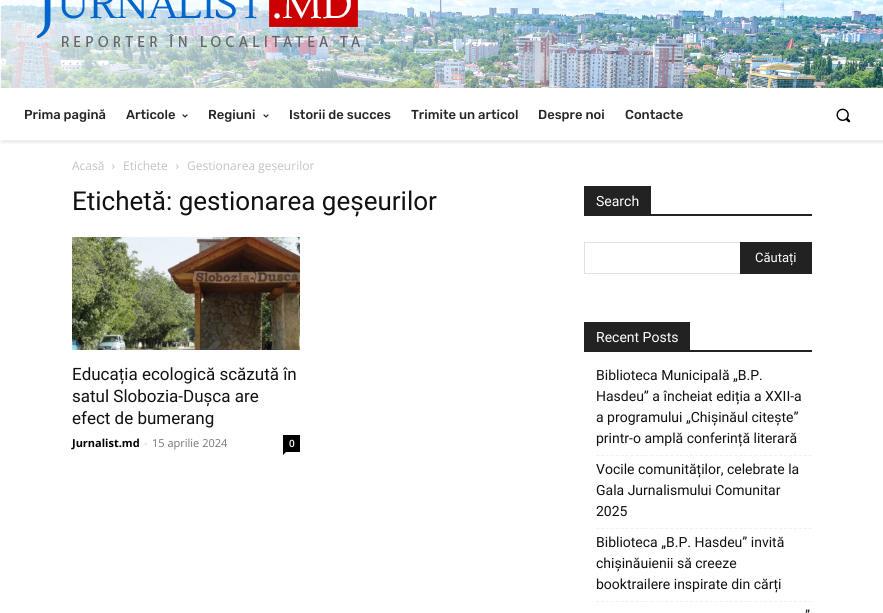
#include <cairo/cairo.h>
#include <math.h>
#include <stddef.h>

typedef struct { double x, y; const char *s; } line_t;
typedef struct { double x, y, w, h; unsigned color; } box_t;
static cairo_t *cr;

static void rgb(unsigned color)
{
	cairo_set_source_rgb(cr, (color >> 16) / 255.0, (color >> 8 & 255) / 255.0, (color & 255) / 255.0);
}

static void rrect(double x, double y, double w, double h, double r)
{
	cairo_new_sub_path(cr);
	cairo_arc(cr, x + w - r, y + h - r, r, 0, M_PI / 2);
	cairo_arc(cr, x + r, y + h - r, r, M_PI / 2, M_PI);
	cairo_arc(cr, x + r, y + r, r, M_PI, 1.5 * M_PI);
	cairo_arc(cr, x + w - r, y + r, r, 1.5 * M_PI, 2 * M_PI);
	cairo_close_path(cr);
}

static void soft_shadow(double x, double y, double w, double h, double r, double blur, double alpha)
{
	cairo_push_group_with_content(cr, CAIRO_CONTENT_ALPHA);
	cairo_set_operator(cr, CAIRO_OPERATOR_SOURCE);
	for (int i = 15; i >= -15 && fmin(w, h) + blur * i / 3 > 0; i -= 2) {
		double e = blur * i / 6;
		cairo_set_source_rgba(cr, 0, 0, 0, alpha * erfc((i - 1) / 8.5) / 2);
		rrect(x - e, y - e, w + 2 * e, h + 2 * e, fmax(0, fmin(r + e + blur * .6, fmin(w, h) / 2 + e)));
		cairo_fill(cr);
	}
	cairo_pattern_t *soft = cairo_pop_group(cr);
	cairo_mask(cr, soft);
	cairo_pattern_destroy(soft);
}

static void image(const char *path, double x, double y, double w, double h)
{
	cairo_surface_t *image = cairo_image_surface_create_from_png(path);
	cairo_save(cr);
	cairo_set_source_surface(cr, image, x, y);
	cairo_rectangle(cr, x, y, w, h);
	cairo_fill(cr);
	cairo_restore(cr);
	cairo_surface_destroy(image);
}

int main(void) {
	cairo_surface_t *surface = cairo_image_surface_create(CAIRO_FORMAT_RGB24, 883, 613);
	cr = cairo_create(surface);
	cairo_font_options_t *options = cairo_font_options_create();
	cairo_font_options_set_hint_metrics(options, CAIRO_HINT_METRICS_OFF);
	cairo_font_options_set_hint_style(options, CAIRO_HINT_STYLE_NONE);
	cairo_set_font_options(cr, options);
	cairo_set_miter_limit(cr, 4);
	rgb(0xffffff);
	cairo_paint(cr);
	image("img/1.png", 0, 0, 883, 88);
	image("img/2.png", 36, 0, 324, 47);
	cairo_save(cr);
	cairo_rectangle(cr, 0, 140, 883, 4);
	cairo_clip(cr);
	rgb(0x000000);
	soft_shadow(1, 91, 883, 52, 0, 1.5, 0.08);
	cairo_restore(cr);
	image("img/3.png", 182, 114, 6, 4);
	image("img/3.png", 263, 114, 6, 4);
	image("img/4.png", 836, 108, 15, 15);
	image("img/5.png", 112, 164, 3, 5);
	image("img/5.png", 176, 164, 3, 5);
	image("img/6.png", 72, 237, 228, 113);
	rgb(0x000000);
	cairo_rectangle(cr, 283, 435, 17, 17);
	cairo_fill(cr);
	cairo_new_path(cr);
	cairo_move_to(cr, 283, 452);
	cairo_line_to(cr, 286, 452);
	cairo_line_to(cr, 283, 455);
	cairo_close_path(cr);
	cairo_fill(cr);
	{
		static const box_t items[] = {
			{584, 214, 228, 2, 0x222222},
			{584, 186, 67, 28, 0x222222},
			{584, 242, 156, 1, 0xe1e1e1},
			{584, 273, 156, 1, 0xe1e1e1},
			{584, 242, 1, 32, 0xe1e1e1},
			{740, 242, 72, 32, 0x222222},
			{584, 350, 228, 2, 0x222222},
			{584, 322, 106, 28, 0x222222},
		};
		for (size_t i = 0; i < sizeof items / sizeof *items; i++) {
			rgb(items[i].color);
			cairo_rectangle(cr, items[i].x, items[i].y, items[i].w, items[i].h);
			cairo_fill(cr);
		}
	}
	cairo_new_path(cr);
	cairo_move_to(cr, 596, 455.5);
	cairo_line_to(cr, 812, 455.5);
	rgb(0xf1f1f1);
	cairo_set_line_width(cr, 1);
	cairo_set_dash(cr, (double[]){3, 1.95}, 2, 0);
	cairo_stroke(cr);
	cairo_new_path(cr);
	cairo_move_to(cr, 596, 528.5);
	cairo_line_to(cr, 812, 528.5);
	cairo_stroke(cr);
	cairo_new_path(cr);
	cairo_move_to(cr, 596, 601.5);
	cairo_line_to(cr, 812, 601.5);
	cairo_stroke(cr);
	cairo_select_font_face(cr, "Rubik Medium", CAIRO_FONT_SLANT_NORMAL, CAIRO_FONT_WEIGHT_NORMAL);
	cairo_set_font_size(cr, 13);
	rgb(0x262626);
	{
		static const line_t items[] = {
			{24, 119, "Prima pagină"},
			{126, 119, "Articole"},
			{208, 119, "Regiuni"},
			{289, 119, "Istorii de succes"},
			{411, 119, "Trimite un articol"},
			{538, 119, "Despre noi"},
			{625, 119, "Contacte"},
		};
		for (size_t i = 0; i < sizeof items / sizeof *items; i++) {
			cairo_move_to(cr, items[i].x, items[i].y);
			cairo_show_text(cr, items[i].s);
		}
	}
	cairo_select_font_face(cr, "Open Sans", CAIRO_FONT_SLANT_NORMAL, CAIRO_FONT_WEIGHT_NORMAL);
	cairo_set_font_size(cr, 12);
	rgb(0xc3c3c3);
	{
		static const line_t items[] = {
			{72, 170, "Acasă"},
			{123, 170, "Etichete"},
			{187, 170, "Gestionarea geșeurilor"},
		};
		for (size_t i = 0; i < sizeof items / sizeof *items; i++) {
			cairo_move_to(cr, items[i].x, items[i].y);
			cairo_show_text(cr, items[i].s);
		}
	}
	cairo_select_font_face(cr, "Roboto", CAIRO_FONT_SLANT_NORMAL, CAIRO_FONT_WEIGHT_NORMAL);
	cairo_set_font_size(cr, 26);
	rgb(0x111111);
	cairo_move_to(cr, 72, 210);
	cairo_show_text(cr, "Etichetă: gestionarea geșeurilor");
	cairo_set_font_size(cr, 17);
	{
		static const line_t items[] = {
			{72, 380, "Educația ecologică scăzută în"},
			{72, 402, "satul Slobozia-Dușca are"},
			{72, 424, "efect de bumerang"},
		};
		for (size_t i = 0; i < sizeof items / sizeof *items; i++) {
			cairo_move_to(cr, items[i].x, items[i].y);
			cairo_show_text(cr, items[i].s);
		}
	}
	cairo_select_font_face(cr, "Open Sans", CAIRO_FONT_SLANT_NORMAL, CAIRO_FONT_WEIGHT_BOLD);
	cairo_set_font_size(cr, 11);
	rgb(0x000000);
	cairo_move_to(cr, 72, 447);
	cairo_show_text(cr, "Jurnalist.md");
	cairo_select_font_face(cr, "Open Sans", CAIRO_FONT_SLANT_NORMAL, CAIRO_FONT_WEIGHT_NORMAL);
	rgb(0xcccccc);
	cairo_move_to(cr, 144, 447);
	cairo_show_text(cr, "-");
	rgb(0x767676);
	cairo_move_to(cr, 152, 447);
	cairo_show_text(cr, "15 aprilie 2024");
	cairo_select_font_face(cr, "Open Sans SemiBold", CAIRO_FONT_SLANT_NORMAL, CAIRO_FONT_WEIGHT_NORMAL);
	cairo_set_font_size(cr, 10);
	rgb(0xffffff);
	cairo_move_to(cr, 289, 447);
	cairo_show_text(cr, "0");
	cairo_select_font_face(cr, "Roboto", CAIRO_FONT_SLANT_NORMAL, CAIRO_FONT_WEIGHT_NORMAL);
	cairo_set_font_size(cr, 14);
	cairo_move_to(cr, 596, 206);
	cairo_show_text(cr, "Search");
	cairo_set_font_size(cr, 13);
	cairo_move_to(cr, 755, 262);
	cairo_show_text(cr, "Căutați");
	cairo_set_font_size(cr, 14);
	cairo_move_to(cr, 596, 342);
	cairo_show_text(cr, "Recent Posts");
	rgb(0x111111);
	{
		static const line_t items[] = {
			{596, 380, "Biblioteca Municipală „B.P."},
			{596, 401, "Hasdeu” a încheiat ediția a XXII-a"},
			{596, 422, "a programului „Chișinăul citește”"},
			{596, 443, "printr-o amplă conferință literară"},
			{596, 474, "Vocile comunităților, celebrate la"},
			{596, 495, "Gala Jurnalismului Comunitar"},
			{596, 516, "2025"},
			{596, 547, "Biblioteca „B.P. Hasdeu” invită"},
			{596, 568, "chișinăuienii să creeze"},
			{596, 589, "booktrailere inspirate din cărți"},
			{805, 620, "”"},
		};
		for (size_t i = 0; i < sizeof items / sizeof *items; i++) {
			cairo_move_to(cr, items[i].x, items[i].y);
			cairo_show_text(cr, items[i].s);
		}
	}
	cairo_surface_write_to_png(surface, "page.png");
	cairo_font_options_destroy(options);
	cairo_destroy(cr);
	cairo_surface_destroy(surface);
	return 0;
}
